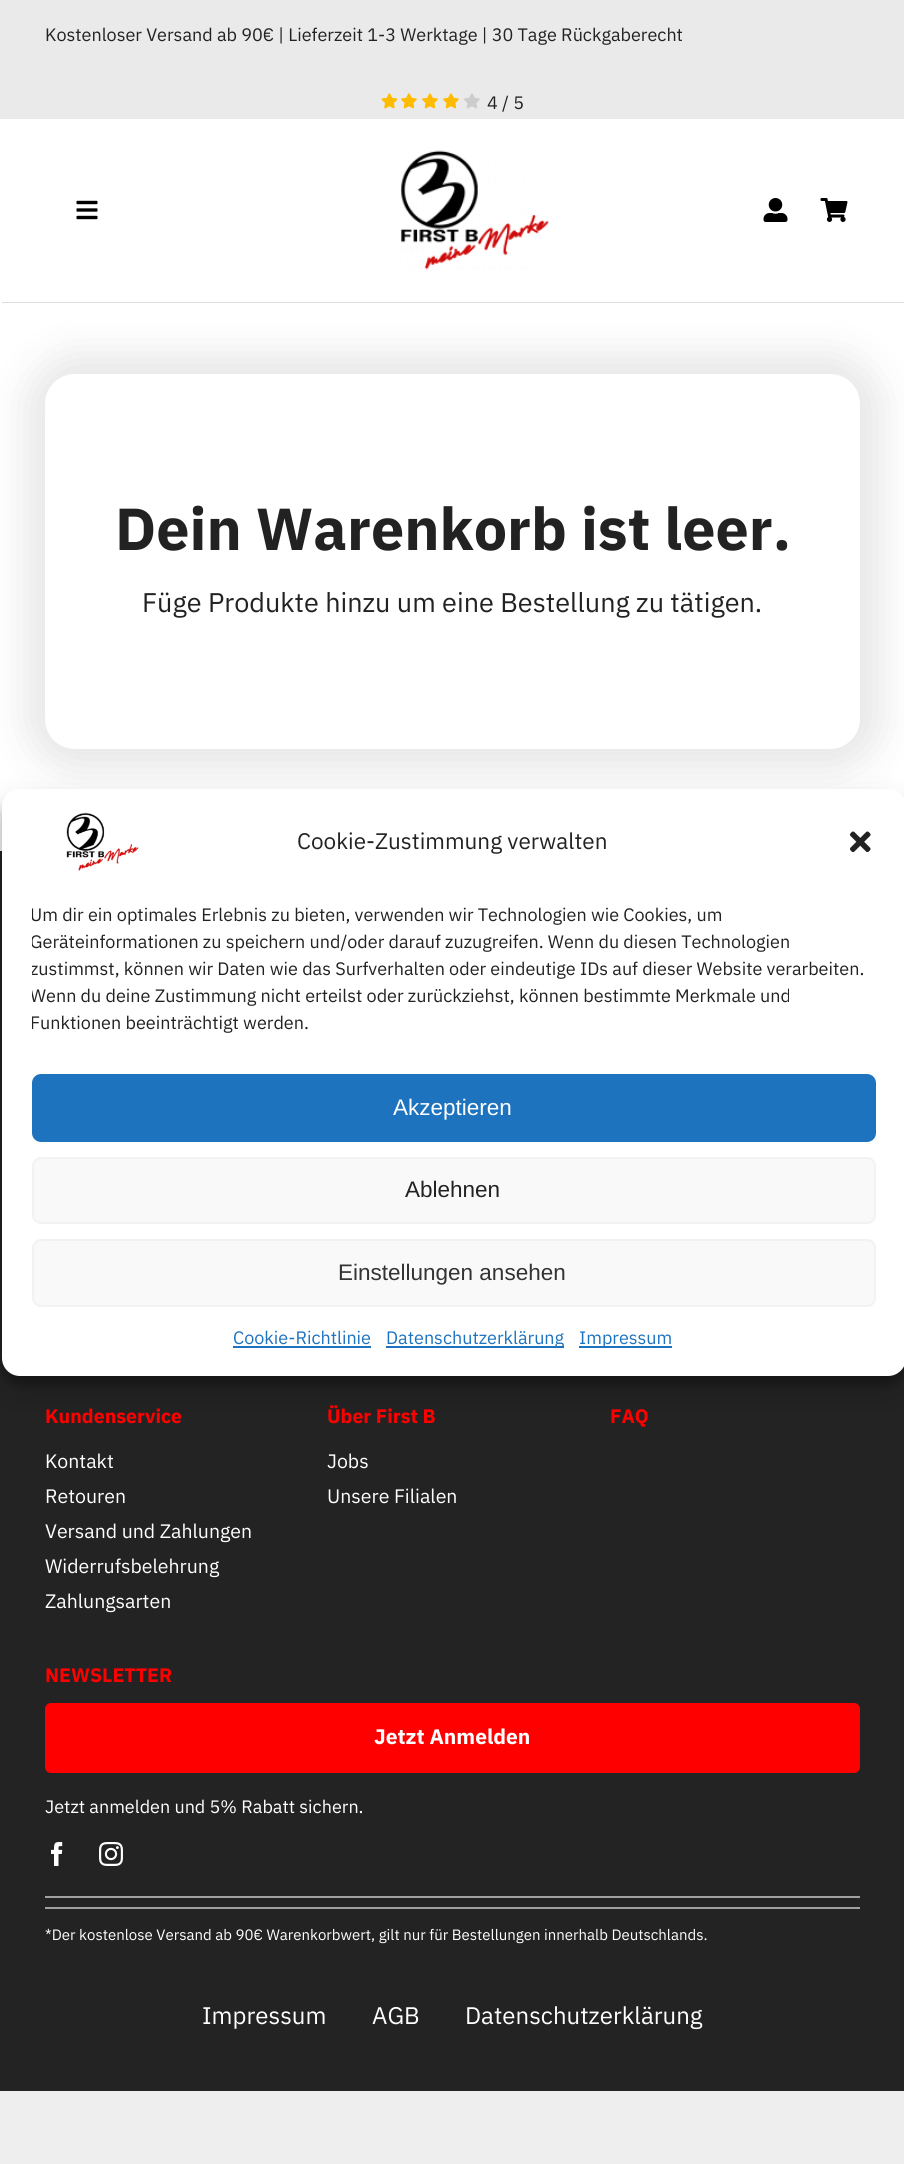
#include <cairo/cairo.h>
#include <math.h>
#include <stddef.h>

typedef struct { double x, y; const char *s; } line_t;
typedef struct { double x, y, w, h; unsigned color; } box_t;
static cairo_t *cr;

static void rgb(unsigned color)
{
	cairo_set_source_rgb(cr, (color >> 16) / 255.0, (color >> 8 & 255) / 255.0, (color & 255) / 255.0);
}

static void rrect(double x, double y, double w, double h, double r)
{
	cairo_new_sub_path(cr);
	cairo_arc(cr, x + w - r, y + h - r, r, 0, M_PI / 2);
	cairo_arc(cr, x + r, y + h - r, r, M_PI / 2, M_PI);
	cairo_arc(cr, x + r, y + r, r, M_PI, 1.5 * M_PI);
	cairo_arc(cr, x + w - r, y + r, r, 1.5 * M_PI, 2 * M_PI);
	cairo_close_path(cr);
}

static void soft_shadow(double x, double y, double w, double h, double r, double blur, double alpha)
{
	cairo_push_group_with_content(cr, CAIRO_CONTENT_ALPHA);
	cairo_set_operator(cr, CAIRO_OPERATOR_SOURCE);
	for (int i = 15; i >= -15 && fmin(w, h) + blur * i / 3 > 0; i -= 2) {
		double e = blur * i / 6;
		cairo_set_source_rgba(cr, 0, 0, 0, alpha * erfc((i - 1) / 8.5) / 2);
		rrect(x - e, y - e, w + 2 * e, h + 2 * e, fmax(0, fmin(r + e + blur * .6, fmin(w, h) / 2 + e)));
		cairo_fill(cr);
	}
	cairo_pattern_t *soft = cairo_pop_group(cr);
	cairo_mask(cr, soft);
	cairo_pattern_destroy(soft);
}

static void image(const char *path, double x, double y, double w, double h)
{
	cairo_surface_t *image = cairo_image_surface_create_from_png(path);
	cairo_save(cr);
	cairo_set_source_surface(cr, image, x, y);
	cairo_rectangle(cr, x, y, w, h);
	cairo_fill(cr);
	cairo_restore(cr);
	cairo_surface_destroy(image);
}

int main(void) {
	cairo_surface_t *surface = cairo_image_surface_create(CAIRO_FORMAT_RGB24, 904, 2164);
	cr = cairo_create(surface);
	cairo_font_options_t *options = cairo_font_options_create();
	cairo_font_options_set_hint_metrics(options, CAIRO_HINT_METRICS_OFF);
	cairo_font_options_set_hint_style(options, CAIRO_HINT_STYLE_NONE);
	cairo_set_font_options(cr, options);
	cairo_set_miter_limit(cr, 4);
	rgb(0xeeeeee);
	cairo_paint(cr);
	rgb(0xffffff);
	cairo_rectangle(cr, 0, 119, 904, 732);
	cairo_fill(cr);
	rgb(0xeaeaea);
	cairo_rectangle(cr, 0, 0, 904, 119);
	cairo_fill(cr);
	image("img/1.png", 381, 93, 17, 16);
	image("img/2.png", 401, 93, 16, 16);
	image("img/2.png", 422, 93, 16, 16);
	image("img/2.png", 443, 93, 16, 16);
	image("img/3.png", 464, 93, 16, 16);
	rgb(0x919191);
	soft_shadow(26, 354, 856, 417, 51, 19.5, 0.22);
	rgb(0xdddddd);
	cairo_new_path(cr);
	cairo_move_to(cr, 2, 302);
	cairo_line_to(cr, 2, 303);
	cairo_line_to(cr, 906, 303);
	cairo_line_to(cr, 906, 120);
	cairo_line_to(cr, 904, 120);
	cairo_line_to(cr, 904, 302);
	cairo_close_path(cr);
	cairo_fill(cr);
	image("img/4.png", 76, 200, 22, 20);
	image("img/5.png", 400, 150, 149, 120);
	image("img/6.png", 763, 198, 25, 24);
	image("img/7.png", 820, 198, 28, 24);
	rgb(0xffffff);
	rrect(45, 374, 815, 375, 30);
	cairo_fill(cr);
	rgb(0x232323);
	cairo_rectangle(cr, 0, 851, 904, 1240);
	cairo_fill(cr);
	rgb(0xff0000);
	rrect(45, 1703, 815, 70, 6);
	cairo_fill(cr);
	image("img/8.png", 51, 1842, 12, 24);
	image("img/9.png", 99, 1842, 24, 24);
	rgb(0xa0a0a0);
	cairo_rectangle(cr, 45, 1896, 815, 2);
	cairo_fill(cr);
	cairo_rectangle(cr, 45, 1907, 815, 2);
	cairo_fill(cr);
	cairo_save(cr);
	cairo_set_fill_rule(cr, CAIRO_FILL_RULE_EVEN_ODD);
	cairo_new_path(cr);
	cairo_move_to(cr, 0, 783);
	cairo_line_to(cr, 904, 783);
	cairo_line_to(cr, 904, 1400);
	cairo_line_to(cr, 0, 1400);
	cairo_close_path(cr);
	cairo_move_to(cr, 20, 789);
	cairo_line_to(cr, 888, 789);
	cairo_curve_to(cr, 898, 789, 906, 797, 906, 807);
	cairo_line_to(cr, 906, 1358);
	cairo_curve_to(cr, 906, 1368, 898, 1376, 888, 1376);
	cairo_line_to(cr, 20, 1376);
	cairo_curve_to(cr, 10, 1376, 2, 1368, 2, 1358);
	cairo_line_to(cr, 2, 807);
	cairo_curve_to(cr, 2, 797, 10, 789, 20, 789);
	cairo_close_path(cr);
	cairo_clip(cr);
	rgb(0x000000);
	soft_shadow(2, 798, 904, 587, 18, 4.5, 0.23);
	cairo_restore(cr);
	cairo_save(cr);
	cairo_set_fill_rule(cr, CAIRO_FILL_RULE_EVEN_ODD);
	cairo_new_path(cr);
	cairo_move_to(cr, 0, 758);
	cairo_line_to(cr, 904, 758);
	cairo_line_to(cr, 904, 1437);
	cairo_line_to(cr, 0, 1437);
	cairo_close_path(cr);
	cairo_move_to(cr, 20, 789);
	cairo_line_to(cr, 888, 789);
	cairo_curve_to(cr, 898, 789, 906, 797, 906, 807);
	cairo_line_to(cr, 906, 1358);
	cairo_curve_to(cr, 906, 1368, 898, 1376, 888, 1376);
	cairo_line_to(cr, 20, 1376);
	cairo_curve_to(cr, 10, 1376, 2, 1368, 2, 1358);
	cairo_line_to(cr, 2, 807);
	cairo_curve_to(cr, 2, 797, 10, 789, 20, 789);
	cairo_close_path(cr);
	cairo_clip(cr);
	rgb(0x000000);
	soft_shadow(2, 804, 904, 587, 18, 15, 0.19);
	cairo_restore(cr);
	rgb(0xffffff);
	rrect(2, 789, 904, 587, 18);
	cairo_fill(cr);
	image("img/10.png", 66, 812, 73, 59);
	image("img/11.png", 850, 831, 21, 22);
	rgb(0x1e73be);
	rrect(33, 1075, 842, 66, 8);
	cairo_fill_preserve(cr);
	cairo_stroke(cr);
	rgb(0xf9f9f9);
	rrect(33, 1158, 842, 65, 8);
	cairo_fill_preserve(cr);
	rgb(0xf2f2f2);
	cairo_stroke(cr);
	rgb(0xf9f9f9);
	rrect(33, 1240, 842, 66, 8);
	cairo_fill_preserve(cr);
	rgb(0xf2f2f2);
	cairo_stroke(cr);
	{
		static const box_t items[] = {
			{233, 1346, 138, 2, 0x1e73be},
			{386, 1346, 178, 2, 0x1e73be},
			{579, 1346, 93, 2, 0x1e73be},
		};
		for (size_t i = 0; i < sizeof items / sizeof *items; i++) {
			rgb(items[i].color);
			cairo_rectangle(cr, items[i].x, items[i].y, items[i].w, items[i].h);
			cairo_fill(cr);
		}
	}
	cairo_select_font_face(cr, "IBM Plex Sans", CAIRO_FONT_SLANT_NORMAL, CAIRO_FONT_WEIGHT_NORMAL);
	cairo_set_font_size(cr, 18);
	rgb(0x222222);
	cairo_move_to(cr, 45, 41);
	cairo_show_text(cr, "Kostenloser Versand ab 90€ | Lieferzeit 1-3 Werktage | 30 Tage Rückgaberecht");
	cairo_move_to(cr, 487, 109);
	cairo_show_text(cr, "4 / 5");
	cairo_select_font_face(cr, "IBM Plex Sans", CAIRO_FONT_SLANT_NORMAL, CAIRO_FONT_WEIGHT_BOLD);
	cairo_set_font_size(cr, 59.2);
	cairo_move_to(cr, 115, 550);
	cairo_show_text(cr, "Dein Warenkorb ist leer.");
	cairo_select_font_face(cr, "IBM Plex Sans", CAIRO_FONT_SLANT_NORMAL, CAIRO_FONT_WEIGHT_NORMAL);
	cairo_set_font_size(cr, 27);
	cairo_move_to(cr, 142, 612);
	cairo_show_text(cr, "Füge Produkte hinzu um eine Bestellung zu tätigen.");
	cairo_select_font_face(cr, "IBM Plex Sans", CAIRO_FONT_SLANT_NORMAL, CAIRO_FONT_WEIGHT_BOLD);
	cairo_set_font_size(cr, 19.5);
	rgb(0xff0000);
	cairo_move_to(cr, 45, 1423);
	cairo_show_text(cr, "Kundenservice");
	cairo_select_font_face(cr, "IBM Plex Sans", CAIRO_FONT_SLANT_NORMAL, CAIRO_FONT_WEIGHT_NORMAL);
	rgb(0xffffff);
	{
		static const line_t items[] = {
			{45, 1468, "Kontakt"},
			{45, 1503, "Retouren"},
			{45, 1538, "Versand und Zahlungen"},
			{45, 1573, "Widerrufsbelehrung"},
			{45, 1608, "Zahlungsarten"},
		};
		for (size_t i = 0; i < sizeof items / sizeof *items; i++) {
			cairo_move_to(cr, items[i].x, items[i].y);
			cairo_show_text(cr, items[i].s);
		}
	}
	cairo_select_font_face(cr, "IBM Plex Sans", CAIRO_FONT_SLANT_NORMAL, CAIRO_FONT_WEIGHT_BOLD);
	rgb(0xff0000);
	cairo_move_to(cr, 327, 1423);
	cairo_show_text(cr, "Über First B");
	cairo_select_font_face(cr, "IBM Plex Sans", CAIRO_FONT_SLANT_NORMAL, CAIRO_FONT_WEIGHT_NORMAL);
	rgb(0xffffff);
	cairo_move_to(cr, 327, 1468);
	cairo_show_text(cr, "Jobs");
	cairo_move_to(cr, 327, 1503);
	cairo_show_text(cr, "Unsere Filialen");
	cairo_select_font_face(cr, "IBM Plex Sans", CAIRO_FONT_SLANT_NORMAL, CAIRO_FONT_WEIGHT_BOLD);
	rgb(0xff0000);
	cairo_move_to(cr, 610, 1423);
	cairo_show_text(cr, "FAQ");
	cairo_move_to(cr, 45, 1682);
	cairo_show_text(cr, "NEWSLETTER");
	cairo_set_font_size(cr, 21);
	rgb(0xffffff);
	cairo_move_to(cr, 374, 1744);
	cairo_show_text(cr, "Jetzt Anmelden");
	cairo_select_font_face(cr, "IBM Plex Sans", CAIRO_FONT_SLANT_NORMAL, CAIRO_FONT_WEIGHT_NORMAL);
	cairo_set_font_size(cr, 18);
	cairo_move_to(cr, 45, 1813);
	cairo_show_text(cr, "Jetzt anmelden und 5% Rabatt sichern.");
	cairo_set_font_size(cr, 15);
	cairo_move_to(cr, 45, 1940);
	cairo_show_text(cr, "*Der kostenlose Versand ab 90€ Warenkorbwert, gilt nur für Bestellungen innerhalb Deutschlands.");
	cairo_set_font_size(cr, 24);
	{
		static const line_t items[] = {
			{202, 2024, "Impressum"},
			{372, 2024, "AGB"},
			{465, 2024, "Datenschutzerklärung"},
		};
		for (size_t i = 0; i < sizeof items / sizeof *items; i++) {
			cairo_move_to(cr, items[i].x, items[i].y);
			cairo_show_text(cr, items[i].s);
		}
	}
	cairo_set_font_size(cr, 22.5);
	rgb(0x222222);
	cairo_move_to(cr, 297, 849);
	cairo_show_text(cr, "Cookie-Zustimmung verwalten");
	cairo_save(cr);
	cairo_rectangle(cr, 32, 902, 844, 142);
	cairo_clip(cr);
	cairo_set_font_size(cr, 18);
	{
		static const line_t items[] = {
			{30, 921, "Um dir ein optimales Erlebnis zu bieten, verwenden wir Technologien wie Cookies, um"},
			{30, 948, "Geräteinformationen zu speichern und/oder darauf zuzugreifen. Wenn du diesen Technologien"},
			{30, 975, "zustimmst, können wir Daten wie das Surfverhalten oder eindeutige IDs auf dieser Website verarbeiten."},
			{30, 1002, "Wenn du deine Zustimmung nicht erteilst oder zurückziehst, können bestimmte Merkmale und"},
			{30, 1029, "Funktionen beeinträchtigt werden."},
		};
		for (size_t i = 0; i < sizeof items / sizeof *items; i++) {
			cairo_move_to(cr, items[i].x, items[i].y);
			cairo_show_text(cr, items[i].s);
		}
	}
	cairo_restore(cr);
	cairo_select_font_face(cr, "Liberation Sans", CAIRO_FONT_SLANT_NORMAL, CAIRO_FONT_WEIGHT_NORMAL);
	rgb(0xffffff);
	cairo_move_to(cr, 393, 1115);
	cairo_show_text(cr, "Akzeptieren");
	rgb(0x222222);
	cairo_move_to(cr, 405, 1197);
	cairo_show_text(cr, "Ablehnen");
	rgb(0x333333);
	cairo_move_to(cr, 338, 1280);
	cairo_show_text(cr, "Einstellungen ansehen");
	cairo_select_font_face(cr, "IBM Plex Sans", CAIRO_FONT_SLANT_NORMAL, CAIRO_FONT_WEIGHT_NORMAL);
	cairo_set_font_size(cr, 18);
	rgb(0x1e73be);
	{
		static const line_t items[] = {
			{233, 1344, "Cookie-Richtlinie"},
			{386, 1344, "Datenschutzerklärung"},
			{579, 1344, "Impressum"},
		};
		for (size_t i = 0; i < sizeof items / sizeof *items; i++) {
			cairo_move_to(cr, items[i].x, items[i].y);
			cairo_show_text(cr, items[i].s);
		}
	}
	cairo_surface_write_to_png(surface, "page.png");
	cairo_font_options_destroy(options);
	cairo_destroy(cr);
	cairo_surface_destroy(surface);
	return 0;
}
